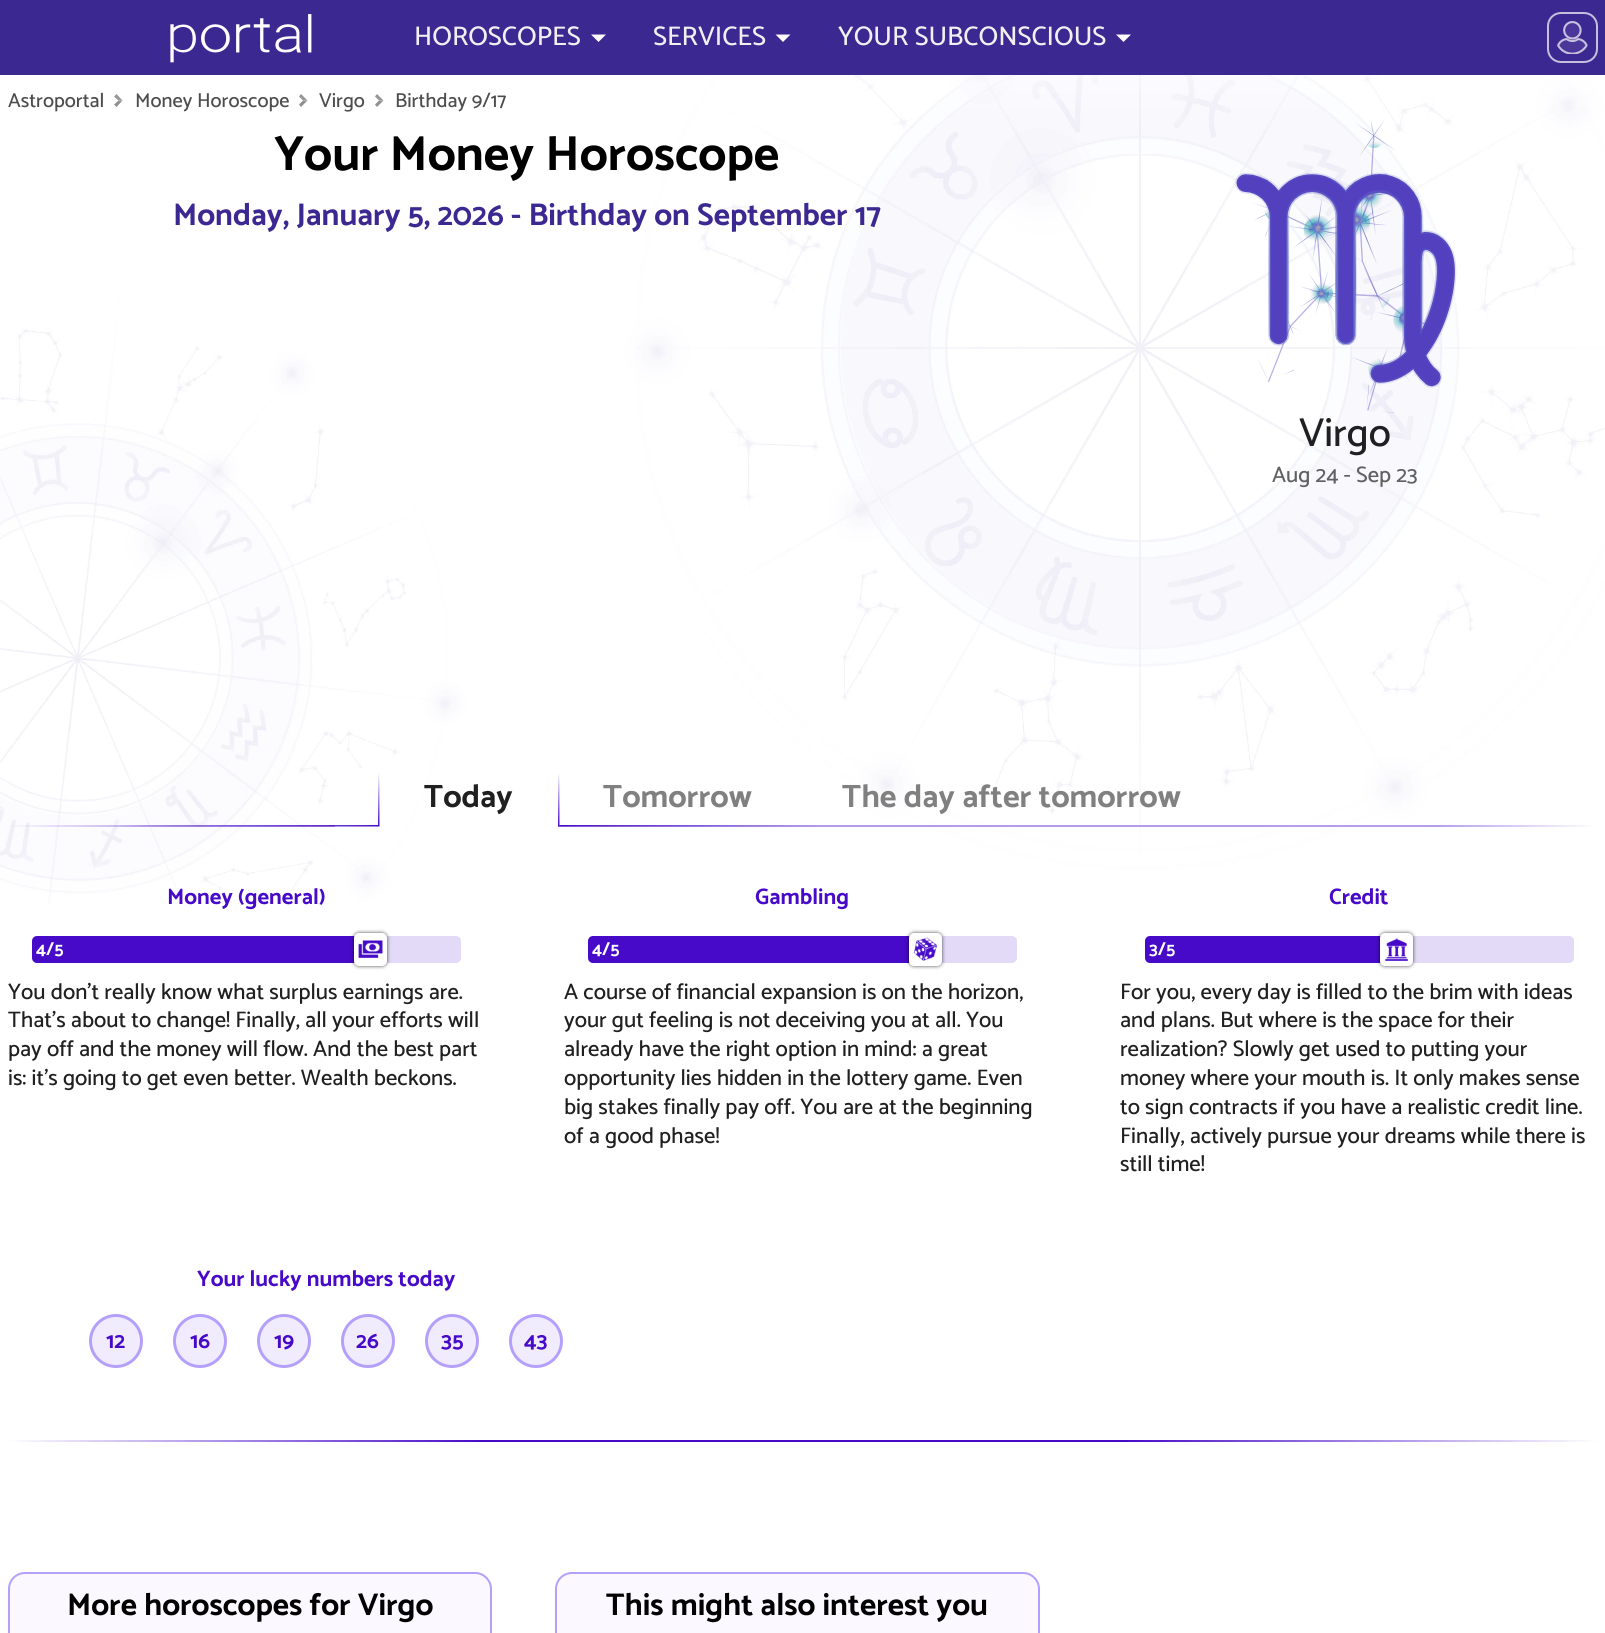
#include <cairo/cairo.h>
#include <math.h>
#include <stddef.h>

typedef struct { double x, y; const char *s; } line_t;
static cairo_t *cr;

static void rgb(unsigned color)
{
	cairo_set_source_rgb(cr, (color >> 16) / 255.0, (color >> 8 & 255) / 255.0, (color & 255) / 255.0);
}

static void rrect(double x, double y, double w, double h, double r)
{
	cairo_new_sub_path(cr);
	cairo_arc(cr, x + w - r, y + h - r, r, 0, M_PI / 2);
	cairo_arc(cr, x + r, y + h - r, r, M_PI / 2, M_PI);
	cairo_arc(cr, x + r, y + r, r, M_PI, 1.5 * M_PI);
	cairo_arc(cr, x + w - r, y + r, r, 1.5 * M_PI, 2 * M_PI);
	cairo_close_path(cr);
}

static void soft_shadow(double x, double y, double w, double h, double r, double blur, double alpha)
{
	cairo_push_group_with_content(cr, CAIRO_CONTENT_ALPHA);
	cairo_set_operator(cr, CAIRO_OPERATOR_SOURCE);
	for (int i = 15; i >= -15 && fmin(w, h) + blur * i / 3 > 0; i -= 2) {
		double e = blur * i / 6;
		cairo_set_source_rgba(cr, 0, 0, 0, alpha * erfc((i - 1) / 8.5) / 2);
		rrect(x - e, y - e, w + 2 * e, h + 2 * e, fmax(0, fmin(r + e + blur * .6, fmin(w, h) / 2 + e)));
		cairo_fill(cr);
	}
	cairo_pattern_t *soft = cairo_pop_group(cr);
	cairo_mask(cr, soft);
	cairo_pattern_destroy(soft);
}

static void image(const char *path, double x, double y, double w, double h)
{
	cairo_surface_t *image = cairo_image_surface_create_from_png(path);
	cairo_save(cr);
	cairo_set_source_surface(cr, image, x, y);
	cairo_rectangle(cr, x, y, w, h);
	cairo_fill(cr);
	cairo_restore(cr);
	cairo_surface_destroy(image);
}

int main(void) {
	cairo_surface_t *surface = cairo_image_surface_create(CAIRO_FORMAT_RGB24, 1605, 1633);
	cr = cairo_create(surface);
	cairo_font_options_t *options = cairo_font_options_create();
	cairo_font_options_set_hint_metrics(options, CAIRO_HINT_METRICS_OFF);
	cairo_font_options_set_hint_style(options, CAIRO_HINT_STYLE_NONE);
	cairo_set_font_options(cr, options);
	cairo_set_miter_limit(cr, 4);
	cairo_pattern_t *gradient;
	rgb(0xffffff);
	cairo_paint(cr);
	image("img/3.png", 0, 75, 1605, 828);
	rgb(0x808080);
	cairo_new_path(cr);
	cairo_move_to(cr, 116.5, 94);
	cairo_line_to(cr, 122.5, 100.5);
	cairo_line_to(cr, 118.5, 100.5);
	cairo_line_to(cr, 114, 96.5);
	cairo_close_path(cr);
	cairo_fill(cr);
	cairo_new_path(cr);
	cairo_move_to(cr, 122.5, 100.5);
	cairo_line_to(cr, 116.5, 107);
	cairo_line_to(cr, 114, 104.5);
	cairo_line_to(cr, 118.5, 100.5);
	cairo_close_path(cr);
	cairo_fill(cr);
	cairo_new_path(cr);
	cairo_move_to(cr, 301, 94);
	cairo_line_to(cr, 307.5, 100.5);
	cairo_line_to(cr, 303, 100.5);
	cairo_line_to(cr, 299, 96.5);
	cairo_close_path(cr);
	cairo_fill(cr);
	cairo_new_path(cr);
	cairo_move_to(cr, 307.5, 100.5);
	cairo_line_to(cr, 301, 107);
	cairo_line_to(cr, 299, 104.5);
	cairo_line_to(cr, 303, 100.5);
	cairo_close_path(cr);
	cairo_fill(cr);
	cairo_new_path(cr);
	cairo_move_to(cr, 377, 94);
	cairo_line_to(cr, 383.5, 100.5);
	cairo_line_to(cr, 379, 100.5);
	cairo_line_to(cr, 375, 96.5);
	cairo_close_path(cr);
	cairo_fill(cr);
	cairo_new_path(cr);
	cairo_move_to(cr, 383.5, 100.5);
	cairo_line_to(cr, 377, 107);
	cairo_line_to(cr, 375, 104.5);
	cairo_line_to(cr, 379, 100.5);
	cairo_close_path(cr);
	cairo_fill(cr);
	image("img/4.png", 1235, 119, 222, 294);
	rgb(0xffffff);
	soft_shadow(-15, -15, 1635, 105, 0, 22.5, 0.5);
	rgb(0x3c2891);
	cairo_rectangle(cr, 0, 0, 1605, 75);
	cairo_fill(cr);
	image("img/1.png", 170, 14, 142, 49);
	rgb(0xffffff);
	cairo_new_path(cr);
	cairo_move_to(cr, 591, 34.5);
	cairo_line_to(cr, 606, 34.5);
	cairo_line_to(cr, 598.5, 42);
	cairo_close_path(cr);
	cairo_fill(cr);
	cairo_new_path(cr);
	cairo_move_to(cr, 775.5, 34.5);
	cairo_line_to(cr, 790.5, 34.5);
	cairo_line_to(cr, 783, 42);
	cairo_close_path(cr);
	cairo_fill(cr);
	cairo_new_path(cr);
	cairo_move_to(cr, 1116, 34.5);
	cairo_line_to(cr, 1131, 34.5);
	cairo_line_to(cr, 1123.5, 42);
	cairo_close_path(cr);
	cairo_fill(cr);
	image("img/2.png", 1557, 21, 31, 33);
	rrect(1548, 13, 49, 49, 13);
	rgb(0xc5bfde);
	cairo_stroke(cr);
	image("img/5.png", 120, 774, 260, 53);
	rgb(0xb59de9);
	cairo_rectangle(cr, 558, 825, 239, 2);
	cairo_fill(cr);
	cairo_set_source_rgba(cr, 0.275, 0.039, 0.784, 0.4);
	cairo_rectangle(cr, 797, 825, 474, 2);
	cairo_fill(cr);
	gradient = cairo_pattern_create_linear(1271, 826, 1598, 826);
	cairo_pattern_add_color_stop_rgba(gradient, 0, 0.71, 0.616, 0.914, 1);
	cairo_pattern_add_color_stop_rgba(gradient, 0.5, 0.71, 0.616, 0.914, 1);
	cairo_pattern_add_color_stop_rgba(gradient, 1, 1, 1, 1, 1);
	cairo_set_source(cr, gradient);
	cairo_pattern_destroy(gradient);
	cairo_rectangle(cr, 1271, 825, 327, 2);
	cairo_fill(cr);
	gradient = cairo_pattern_create_linear(32, 950, 461, 950);
	cairo_pattern_add_color_stop_rgba(gradient, 0, 0.275, 0.039, 0.784, 1);
	cairo_pattern_add_color_stop_rgba(gradient, 0.8, 0.275, 0.039, 0.784, 1);
	cairo_pattern_add_color_stop_rgba(gradient, 0.81, 0.89, 0.855, 0.969, 1);
	cairo_pattern_add_color_stop_rgba(gradient, 1, 0.89, 0.855, 0.969, 1);
	cairo_set_source(cr, gradient);
	cairo_pattern_destroy(gradient);
	rrect(32, 936, 429, 27, 5);
	cairo_fill(cr);
	rgb(0x000000);
	soft_shadow(354, 933, 33, 33, 5, 2, 0.7);
	rgb(0xffffff);
	rrect(354, 933, 33, 33, 5);
	cairo_fill(cr);
	image("img/7.png", 358, 940, 25, 18);
	gradient = cairo_pattern_create_linear(588, 950, 1017, 950);
	cairo_pattern_add_color_stop_rgba(gradient, 0, 0.275, 0.039, 0.784, 1);
	cairo_pattern_add_color_stop_rgba(gradient, 0.8, 0.275, 0.039, 0.784, 1);
	cairo_pattern_add_color_stop_rgba(gradient, 0.81, 0.89, 0.855, 0.969, 1);
	cairo_pattern_add_color_stop_rgba(gradient, 1, 0.89, 0.855, 0.969, 1);
	cairo_set_source(cr, gradient);
	cairo_pattern_destroy(gradient);
	rrect(588, 936, 429, 27, 5);
	cairo_fill(cr);
	rgb(0x000000);
	soft_shadow(909, 933, 33, 33, 5, 2, 0.7);
	rgb(0xffffff);
	rrect(909, 933, 33, 33, 5);
	cairo_fill(cr);
	image("img/8.png", 913, 937, 25, 24);
	gradient = cairo_pattern_create_linear(1145, 950, 1574, 950);
	cairo_pattern_add_color_stop_rgba(gradient, 0, 0.275, 0.039, 0.784, 1);
	cairo_pattern_add_color_stop_rgba(gradient, 0.6, 0.275, 0.039, 0.784, 1);
	cairo_pattern_add_color_stop_rgba(gradient, 0.61, 0.89, 0.855, 0.969, 1);
	cairo_pattern_add_color_stop_rgba(gradient, 1, 0.89, 0.855, 0.969, 1);
	cairo_set_source(cr, gradient);
	cairo_pattern_destroy(gradient);
	rrect(1145, 936, 429, 27, 5);
	cairo_fill(cr);
	rgb(0x000000);
	soft_shadow(1380, 933, 33, 33, 5, 2, 0.7);
	rgb(0xffffff);
	rrect(1380, 933, 33, 33, 5);
	cairo_fill(cr);
	image("img/9.png", 1385, 938, 23, 23);
	rgb(0xf0ecfe);
	cairo_arc(cr, 116, 1341, 25.5, 0, 2 * M_PI);
	cairo_fill_preserve(cr);
	rgb(0xb4a0fa);
	cairo_set_line_width(cr, 3);
	cairo_stroke(cr);
	rgb(0xf0ecfe);
	cairo_arc(cr, 200, 1341, 25.5, 0, 2 * M_PI);
	cairo_fill_preserve(cr);
	rgb(0xb4a0fa);
	cairo_stroke(cr);
	rgb(0xf0ecfe);
	cairo_arc(cr, 284, 1341, 25.5, 0, 2 * M_PI);
	cairo_fill_preserve(cr);
	rgb(0xb4a0fa);
	cairo_stroke(cr);
	rgb(0xf0ecfe);
	cairo_arc(cr, 368, 1341, 25.5, 0, 2 * M_PI);
	cairo_fill_preserve(cr);
	rgb(0xb4a0fa);
	cairo_stroke(cr);
	rgb(0xf0ecfe);
	cairo_arc(cr, 452, 1341, 25.5, 0, 2 * M_PI);
	cairo_fill_preserve(cr);
	rgb(0xb4a0fa);
	cairo_stroke(cr);
	rgb(0xf0ecfe);
	cairo_arc(cr, 536, 1341, 25.5, 0, 2 * M_PI);
	cairo_fill_preserve(cr);
	rgb(0xb4a0fa);
	cairo_stroke(cr);
	gradient = cairo_pattern_create_linear(405, 1043, 1200, 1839);
	cairo_pattern_add_color_stop_rgba(gradient, 0, 1, 1, 1, 1);
	cairo_pattern_add_color_stop_rgba(gradient, 0.3, 0.275, 0.039, 0.784, 1);
	cairo_pattern_add_color_stop_rgba(gradient, 0.7, 0.275, 0.039, 0.784, 1);
	cairo_pattern_add_color_stop_rgba(gradient, 1, 1, 1, 1, 1);
	cairo_set_source(cr, gradient);
	cairo_pattern_destroy(gradient);
	cairo_rectangle(cr, 8, 1440, 1590, 2);
	cairo_fill(cr);
	cairo_save(cr);
	rrect(8, 1572, 484, 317, 17);
	cairo_clip(cr);
	gradient = cairo_pattern_create_linear(106, 1510, 393, 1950);
	cairo_pattern_add_color_stop_rgba(gradient, 0, 0.984, 0.976, 1, 1);
	cairo_pattern_add_color_stop_rgba(gradient, 0.6, 0.984, 0.976, 1, 1);
	cairo_pattern_add_color_stop_rgba(gradient, 1, 0.961, 0.933, 1, 1);
	cairo_set_source(cr, gradient);
	cairo_pattern_destroy(gradient);
	cairo_rectangle(cr, 9, 1574, 482, 59);
	cairo_fill(cr);
	cairo_restore(cr);
	rrect(9, 1573, 482, 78, 16);
	rgb(0xb4a0fa);
	cairo_set_line_width(cr, 2);
	cairo_stroke(cr);
	cairo_save(cr);
	rrect(555, 1572, 485, 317, 17);
	cairo_clip(cr);
	gradient = cairo_pattern_create_linear(654, 1510, 941, 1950);
	cairo_pattern_add_color_stop_rgba(gradient, 0, 0.984, 0.976, 1, 1);
	cairo_pattern_add_color_stop_rgba(gradient, 0.6, 0.984, 0.976, 1, 1);
	cairo_pattern_add_color_stop_rgba(gradient, 1, 0.961, 0.933, 1, 1);
	cairo_set_source(cr, gradient);
	cairo_pattern_destroy(gradient);
	cairo_rectangle(cr, 557, 1574, 481, 59);
	cairo_fill(cr);
	cairo_restore(cr);
	rrect(556, 1573, 483, 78, 16);
	cairo_stroke(cr);
	cairo_select_font_face(cr, "Catamaran Medium", CAIRO_FONT_SLANT_NORMAL, CAIRO_FONT_WEIGHT_NORMAL);
	cairo_set_font_size(cr, 27);
	rgb(0xf0f0f0);
	{
		static const line_t items[] = {
			{414, 45, "HOROSCOPES"},
			{653, 45, "SERVICES"},
			{838, 45, "YOUR SUBCONSCIOUS"},
		};
		for (size_t i = 0; i < sizeof items / sizeof *items; i++) {
			cairo_move_to(cr, items[i].x, items[i].y);
			cairo_show_text(cr, items[i].s);
		}
	}
	cairo_set_font_size(cr, 20.25);
	rgb(0x4d4d4d);
	{
		static const line_t items[] = {
			{8, 107, "Astroportal"},
			{135, 107, "Money Horoscope"},
			{319, 107, "Virgo"},
			{395, 107, "Birthday 9/17"},
		};
		for (size_t i = 0; i < sizeof items / sizeof *items; i++) {
			cairo_move_to(cr, items[i].x, items[i].y);
			cairo_show_text(cr, items[i].s);
		}
	}
	cairo_select_font_face(cr, "Catamaran", CAIRO_FONT_SLANT_NORMAL, CAIRO_FONT_WEIGHT_BOLD);
	cairo_set_font_size(cr, 49.5);
	rgb(0x000000);
	cairo_move_to(cr, 274, 170);
	cairo_show_text(cr, "Your Money Horoscope");
	cairo_set_font_size(cr, 31.5);
	rgb(0x3c2891);
	cairo_move_to(cr, 173, 225);
	cairo_show_text(cr, "Monday, January 5, 2026 - Birthday on September 17");
	cairo_select_font_face(cr, "Catamaran Medium", CAIRO_FONT_SLANT_NORMAL, CAIRO_FONT_WEIGHT_NORMAL);
	cairo_set_font_size(cr, 40.5);
	rgb(0x202020);
	cairo_move_to(cr, 1299, 446);
	cairo_show_text(cr, "Virgo");
	cairo_set_font_size(cr, 22.5);
	rgb(0x616162);
	cairo_move_to(cr, 1272, 482);
	cairo_show_text(cr, "Aug 24 - Sep 23");
	cairo_select_font_face(cr, "Catamaran", CAIRO_FONT_SLANT_NORMAL, CAIRO_FONT_WEIGHT_BOLD);
	cairo_set_font_size(cr, 32.4);
	rgb(0x202020);
	cairo_move_to(cr, 424, 807);
	cairo_show_text(cr, "Today");
	rgb(0x808080);
	cairo_move_to(cr, 603, 807);
	cairo_show_text(cr, "Tomorrow");
	image("img/6.png", 558, 774, 258, 53);
	cairo_move_to(cr, 842, 807);
	cairo_show_text(cr, "The day after tomorrow");
	cairo_set_font_size(cr, 22.5);
	rgb(0x460ac8);
	cairo_move_to(cr, 167, 904);
	cairo_show_text(cr, "Money (general)");
	cairo_set_font_size(cr, 18);
	rgb(0xffffff);
	cairo_move_to(cr, 36, 955);
	cairo_show_text(cr, "4/5");
	cairo_select_font_face(cr, "Catamaran Medium", CAIRO_FONT_SLANT_NORMAL, CAIRO_FONT_WEIGHT_NORMAL);
	cairo_set_font_size(cr, 22.5);
	rgb(0x202020);
	{
		static const line_t items[] = {
			{8, 999, "You don't really know what surplus earnings are."},
			{8, 1027, "That's about to change! Finally, all your efforts will"},
			{8, 1056, "pay off and the money will flow. And the best part"},
			{8, 1085, "is: it's going to get even better. Wealth beckons."},
		};
		for (size_t i = 0; i < sizeof items / sizeof *items; i++) {
			cairo_move_to(cr, items[i].x, items[i].y);
			cairo_show_text(cr, items[i].s);
		}
	}
	cairo_select_font_face(cr, "Catamaran", CAIRO_FONT_SLANT_NORMAL, CAIRO_FONT_WEIGHT_BOLD);
	rgb(0x460ac8);
	cairo_move_to(cr, 755, 904);
	cairo_show_text(cr, "Gambling");
	cairo_set_font_size(cr, 18);
	rgb(0xffffff);
	cairo_move_to(cr, 592, 955);
	cairo_show_text(cr, "4/5");
	cairo_select_font_face(cr, "Catamaran Medium", CAIRO_FONT_SLANT_NORMAL, CAIRO_FONT_WEIGHT_NORMAL);
	cairo_set_font_size(cr, 22.5);
	rgb(0x202020);
	{
		static const line_t items[] = {
			{564, 999, "A course of financial expansion is on the horizon,"},
			{564, 1027, "your gut feeling is not deceiving you at all. You"},
			{564, 1056, "already have the right option in mind: a great"},
			{564, 1085, "opportunity lies hidden in the lottery game. Even"},
			{564, 1114, "big stakes finally pay off. You are at the beginning"},
			{564, 1143, "of a good phase!"},
		};
		for (size_t i = 0; i < sizeof items / sizeof *items; i++) {
			cairo_move_to(cr, items[i].x, items[i].y);
			cairo_show_text(cr, items[i].s);
		}
	}
	cairo_select_font_face(cr, "Catamaran", CAIRO_FONT_SLANT_NORMAL, CAIRO_FONT_WEIGHT_BOLD);
	rgb(0x460ac8);
	cairo_move_to(cr, 1329, 904);
	cairo_show_text(cr, "Credit");
	cairo_set_font_size(cr, 18);
	rgb(0xffffff);
	cairo_move_to(cr, 1149, 955);
	cairo_show_text(cr, "3/5");
	cairo_select_font_face(cr, "Catamaran Medium", CAIRO_FONT_SLANT_NORMAL, CAIRO_FONT_WEIGHT_NORMAL);
	cairo_set_font_size(cr, 22.5);
	rgb(0x202020);
	{
		static const line_t items[] = {
			{1120, 999, "For you, every day is filled to the brim with ideas"},
			{1120, 1027, "and plans. But where is the space for their"},
			{1120, 1056, "realization? Slowly get used to putting your"},
			{1120, 1085, "money where your mouth is. It only makes sense"},
			{1120, 1114, "to sign contracts if you have a realistic credit line."},
			{1120, 1143, "Finally, actively pursue your dreams while there is"},
			{1120, 1171, "still time!"},
		};
		for (size_t i = 0; i < sizeof items / sizeof *items; i++) {
			cairo_move_to(cr, items[i].x, items[i].y);
			cairo_show_text(cr, items[i].s);
		}
	}
	cairo_select_font_face(cr, "Catamaran", CAIRO_FONT_SLANT_NORMAL, CAIRO_FONT_WEIGHT_BOLD);
	rgb(0x460ac8);
	{
		static const line_t items[] = {
			{197, 1286, "Your lucky numbers today"},
			{106, 1348, "12"},
			{190, 1348, "16"},
			{274, 1348, "19"},
			{356, 1348, "26"},
			{441, 1348, "35"},
			{524, 1348, "43"},
		};
		for (size_t i = 0; i < sizeof items / sizeof *items; i++) {
			cairo_move_to(cr, items[i].x, items[i].y);
			cairo_show_text(cr, items[i].s);
		}
	}
	cairo_set_font_size(cr, 31.5);
	rgb(0x000000);
	cairo_move_to(cr, 67, 1615);
	cairo_show_text(cr, "More horoscopes for Virgo");
	cairo_move_to(cr, 606, 1615);
	cairo_show_text(cr, "This might also interest you");
	cairo_surface_write_to_png(surface, "page.png");
	cairo_font_options_destroy(options);
	cairo_destroy(cr);
	cairo_surface_destroy(surface);
	return 0;
}
